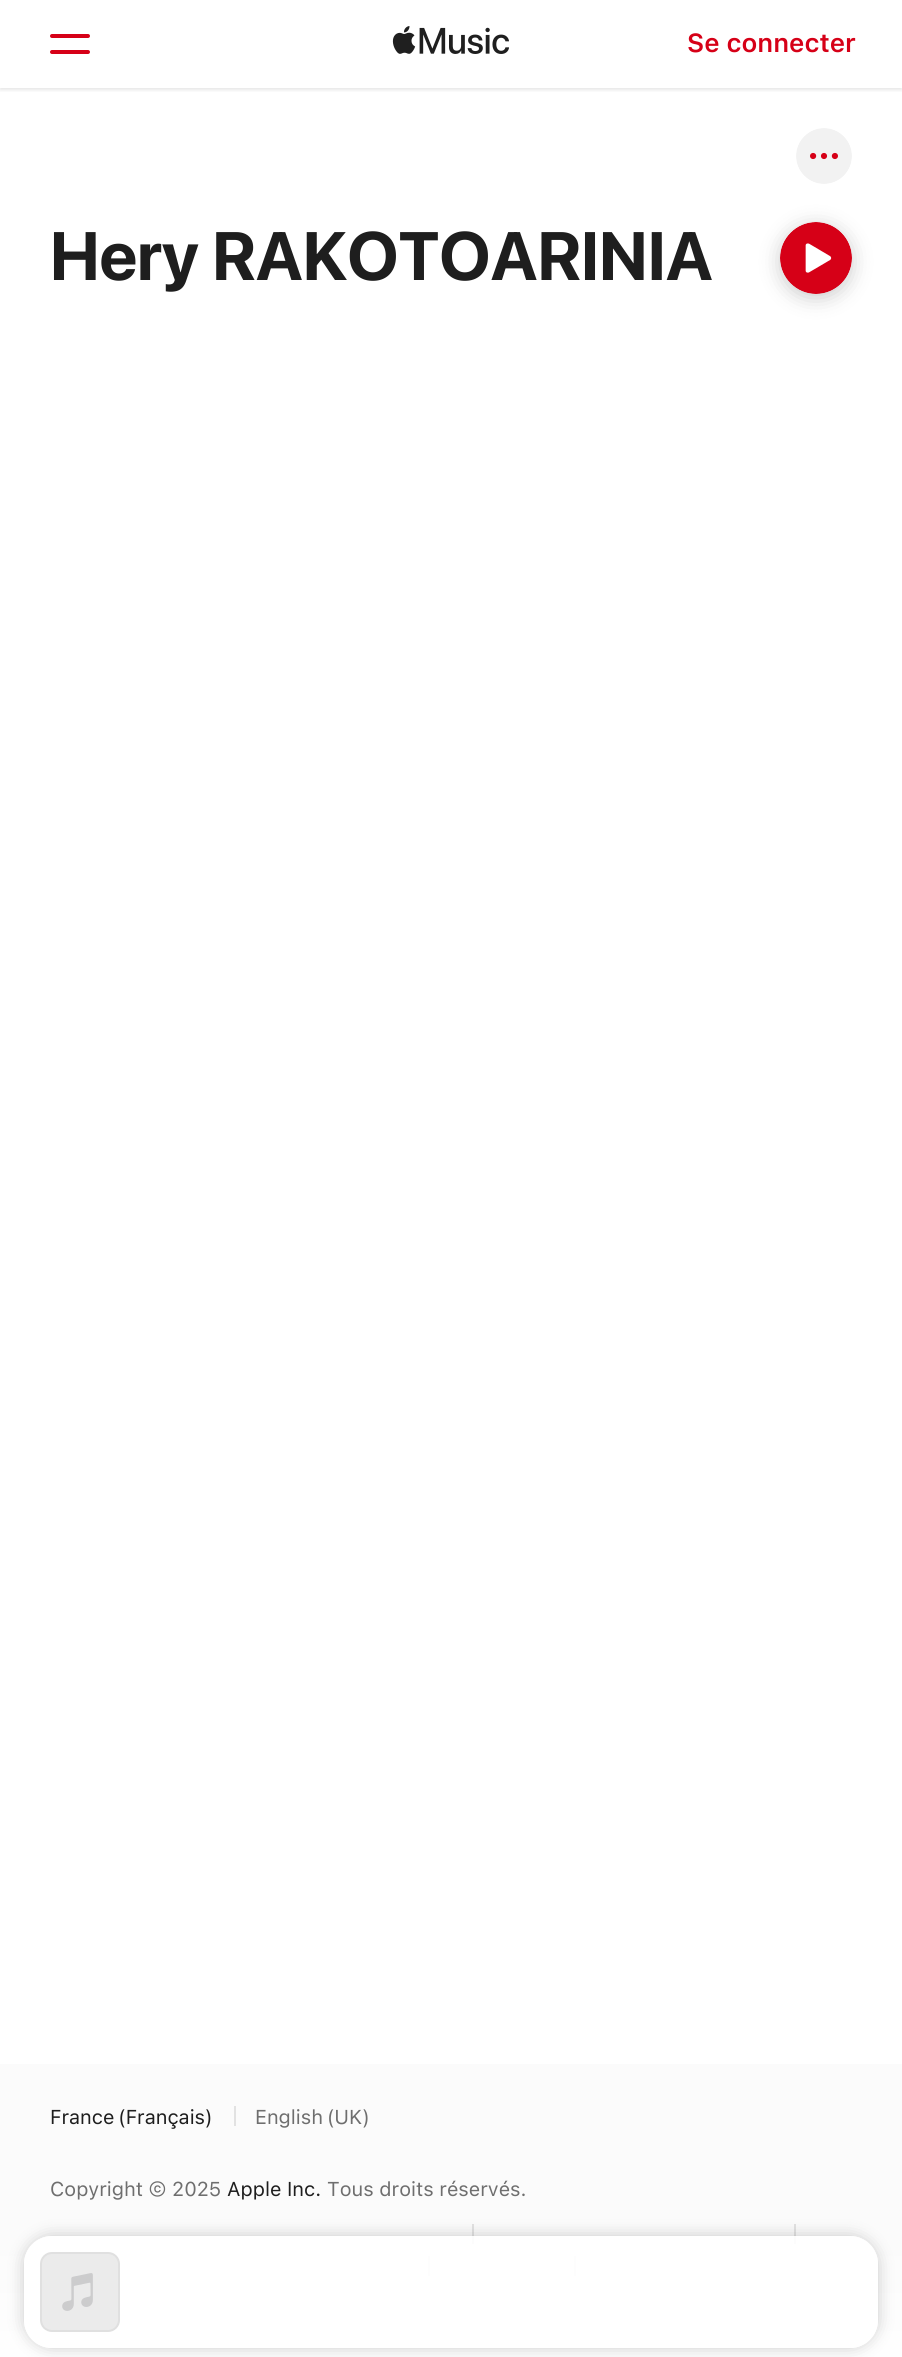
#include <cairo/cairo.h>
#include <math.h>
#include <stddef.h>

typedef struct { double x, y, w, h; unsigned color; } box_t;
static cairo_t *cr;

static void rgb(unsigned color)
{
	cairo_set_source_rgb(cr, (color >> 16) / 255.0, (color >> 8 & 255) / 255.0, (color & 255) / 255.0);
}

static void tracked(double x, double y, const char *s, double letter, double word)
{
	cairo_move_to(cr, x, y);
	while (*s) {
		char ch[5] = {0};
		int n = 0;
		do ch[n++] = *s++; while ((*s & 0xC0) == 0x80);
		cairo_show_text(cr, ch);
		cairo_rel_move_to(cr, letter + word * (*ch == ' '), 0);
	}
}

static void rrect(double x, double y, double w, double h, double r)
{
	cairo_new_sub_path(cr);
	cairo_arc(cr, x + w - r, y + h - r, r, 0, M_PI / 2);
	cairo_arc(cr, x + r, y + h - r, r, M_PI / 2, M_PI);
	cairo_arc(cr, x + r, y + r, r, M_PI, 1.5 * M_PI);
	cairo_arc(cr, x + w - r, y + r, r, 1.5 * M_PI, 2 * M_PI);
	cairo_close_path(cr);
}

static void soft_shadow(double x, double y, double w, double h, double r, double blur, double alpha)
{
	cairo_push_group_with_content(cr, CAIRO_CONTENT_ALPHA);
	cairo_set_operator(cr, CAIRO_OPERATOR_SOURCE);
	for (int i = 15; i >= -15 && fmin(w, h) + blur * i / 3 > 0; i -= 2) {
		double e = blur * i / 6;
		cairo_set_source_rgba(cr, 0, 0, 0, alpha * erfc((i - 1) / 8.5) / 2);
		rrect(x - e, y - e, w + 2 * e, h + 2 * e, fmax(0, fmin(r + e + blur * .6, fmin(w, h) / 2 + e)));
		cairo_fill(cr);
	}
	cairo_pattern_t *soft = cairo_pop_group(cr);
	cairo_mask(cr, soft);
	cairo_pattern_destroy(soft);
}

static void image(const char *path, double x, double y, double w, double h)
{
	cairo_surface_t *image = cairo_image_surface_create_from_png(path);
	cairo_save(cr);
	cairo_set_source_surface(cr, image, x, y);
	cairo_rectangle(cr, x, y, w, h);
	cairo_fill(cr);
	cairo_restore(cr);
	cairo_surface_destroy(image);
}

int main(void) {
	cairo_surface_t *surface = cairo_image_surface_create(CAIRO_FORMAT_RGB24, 902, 2357);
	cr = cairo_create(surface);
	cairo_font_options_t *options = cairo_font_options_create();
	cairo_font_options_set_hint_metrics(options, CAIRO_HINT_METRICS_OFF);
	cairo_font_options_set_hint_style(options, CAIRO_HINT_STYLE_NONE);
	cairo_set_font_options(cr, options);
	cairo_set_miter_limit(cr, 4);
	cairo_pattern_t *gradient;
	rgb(0xffffff);
	cairo_paint(cr);
	cairo_save(cr);
	cairo_rectangle(cr, 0, 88, 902, 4);
	cairo_clip(cr);
	rgb(0x000000);
	soft_shadow(0, 2, 902, 88, 0, 2, 0.1);
	cairo_restore(cr);
	rgb(0xd60017);
	rrect(50, 34, 40, 4, 2);
	cairo_fill(cr);
	rrect(50, 50, 40, 4, 2);
	cairo_fill(cr);
	image("img/1.png", 392, 26, 117, 28);
	image("img/2.png", 796, 128, 56, 56);
	rgb(0x000000);
	soft_shadow(780, 226, 72, 72, 36, 10, 0.2);
	image("img/3.png", 780, 222, 72, 72);
	{
		static const box_t items[] = {
			{0, 2064, 902, 293, 0xfbfbfb},
			{234, 2106, 2, 20, 0xe2e2e2},
			{472, 2224, 2, 20, 0xe2e2e2},
			{794, 2224, 2, 20, 0xe2e2e2},
			{428, 2256, 2, 20, 0xe2e2e2},
			{574, 2256, 2, 20, 0xe2e2e2},
		};
		for (size_t i = 0; i < sizeof items / sizeof *items; i++) {
			rgb(items[i].color);
			cairo_rectangle(cr, items[i].x, items[i].y, items[i].w, items[i].h);
			cairo_fill(cr);
		}
	}
	gradient = cairo_pattern_create_linear(451, 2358, 451, 2236);
	cairo_pattern_add_color_stop_rgba(gradient, 0, 1, 1, 1, 0.8);
	cairo_pattern_add_color_stop_rgba(gradient, 1, 1, 1, 1, 0);
	cairo_set_source(cr, gradient);
	cairo_pattern_destroy(gradient);
	cairo_rectangle(cr, 0, 2256, 902, 101);
	cairo_fill(cr);
	cairo_save(cr);
	cairo_set_fill_rule(cr, CAIRO_FILL_RULE_EVEN_ODD);
	cairo_new_path(cr);
	cairo_move_to(cr, 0, 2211);
	cairo_line_to(cr, 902, 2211);
	cairo_line_to(cr, 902, 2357);
	cairo_line_to(cr, 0, 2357);
	cairo_close_path(cr);
	cairo_move_to(cr, 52, 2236);
	cairo_line_to(cr, 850, 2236);
	cairo_curve_to(cr, 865.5, 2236, 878, 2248.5, 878, 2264);
	cairo_line_to(cr, 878, 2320);
	cairo_curve_to(cr, 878, 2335.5, 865.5, 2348, 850, 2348);
	cairo_line_to(cr, 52, 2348);
	cairo_curve_to(cr, 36.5, 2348, 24, 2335.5, 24, 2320);
	cairo_line_to(cr, 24, 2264);
	cairo_curve_to(cr, 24, 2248.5, 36.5, 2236, 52, 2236);
	cairo_close_path(cr);
	cairo_clip(cr);
	rgb(0x000000);
	soft_shadow(24, 2236, 854, 112, 28, 8, 0.2);
	cairo_restore(cr);
	cairo_set_source_rgba(cr, 1, 1, 1, 0.9);
	rrect(24, 2236, 854, 112, 28);
	cairo_fill(cr);
	rgb(0xebebeb);
	rrect(40, 2252, 80, 80, 12);
	cairo_fill(cr);
	image("img/4.png", 62, 2273, 31, 38);
	rrect(41, 2253, 78, 78, 11);
	cairo_set_source_rgba(cr, 0.502, 0.502, 0.502, 0.1);
	cairo_stroke(cr);
	cairo_select_font_face(cr, "SF SemiBold", CAIRO_FONT_SLANT_NORMAL, CAIRO_FONT_WEIGHT_NORMAL);
	cairo_set_font_size(cr, 26);
	rgb(0xd60017);
	cairo_move_to(cr, 687, 52);
	cairo_show_text(cr, "Se connecter");
	cairo_select_font_face(cr, "SF", CAIRO_FONT_SLANT_NORMAL, CAIRO_FONT_WEIGHT_BOLD);
	cairo_set_font_size(cr, 68);
	rgb(0x1e1e1e);
	cairo_move_to(cr, 50, 280);
	cairo_show_text(cr, "Hery RAKOTOARINIA");
	cairo_select_font_face(cr, "SF", CAIRO_FONT_SLANT_NORMAL, CAIRO_FONT_WEIGHT_NORMAL);
	cairo_set_font_size(cr, 20);
	tracked(50, 2124, "France (Français)", 0, -2);
	rgb(0x6e6e6e);
	tracked(255, 2124, "English (UK)", 0, -2);
	cairo_move_to(cr, 50, 2196);
	cairo_show_text(cr, "Copyright © 2025");
	rgb(0x1e1e1e);
	cairo_move_to(cr, 227, 2196);
	cairo_show_text(cr, "Apple Inc.");
	rgb(0x6e6e6e);
	cairo_move_to(cr, 327, 2196);
	cairo_show_text(cr, "Tous droits réservés.");
	cairo_surface_write_to_png(surface, "page.png");
	cairo_font_options_destroy(options);
	cairo_destroy(cr);
	cairo_surface_destroy(surface);
	return 0;
}
